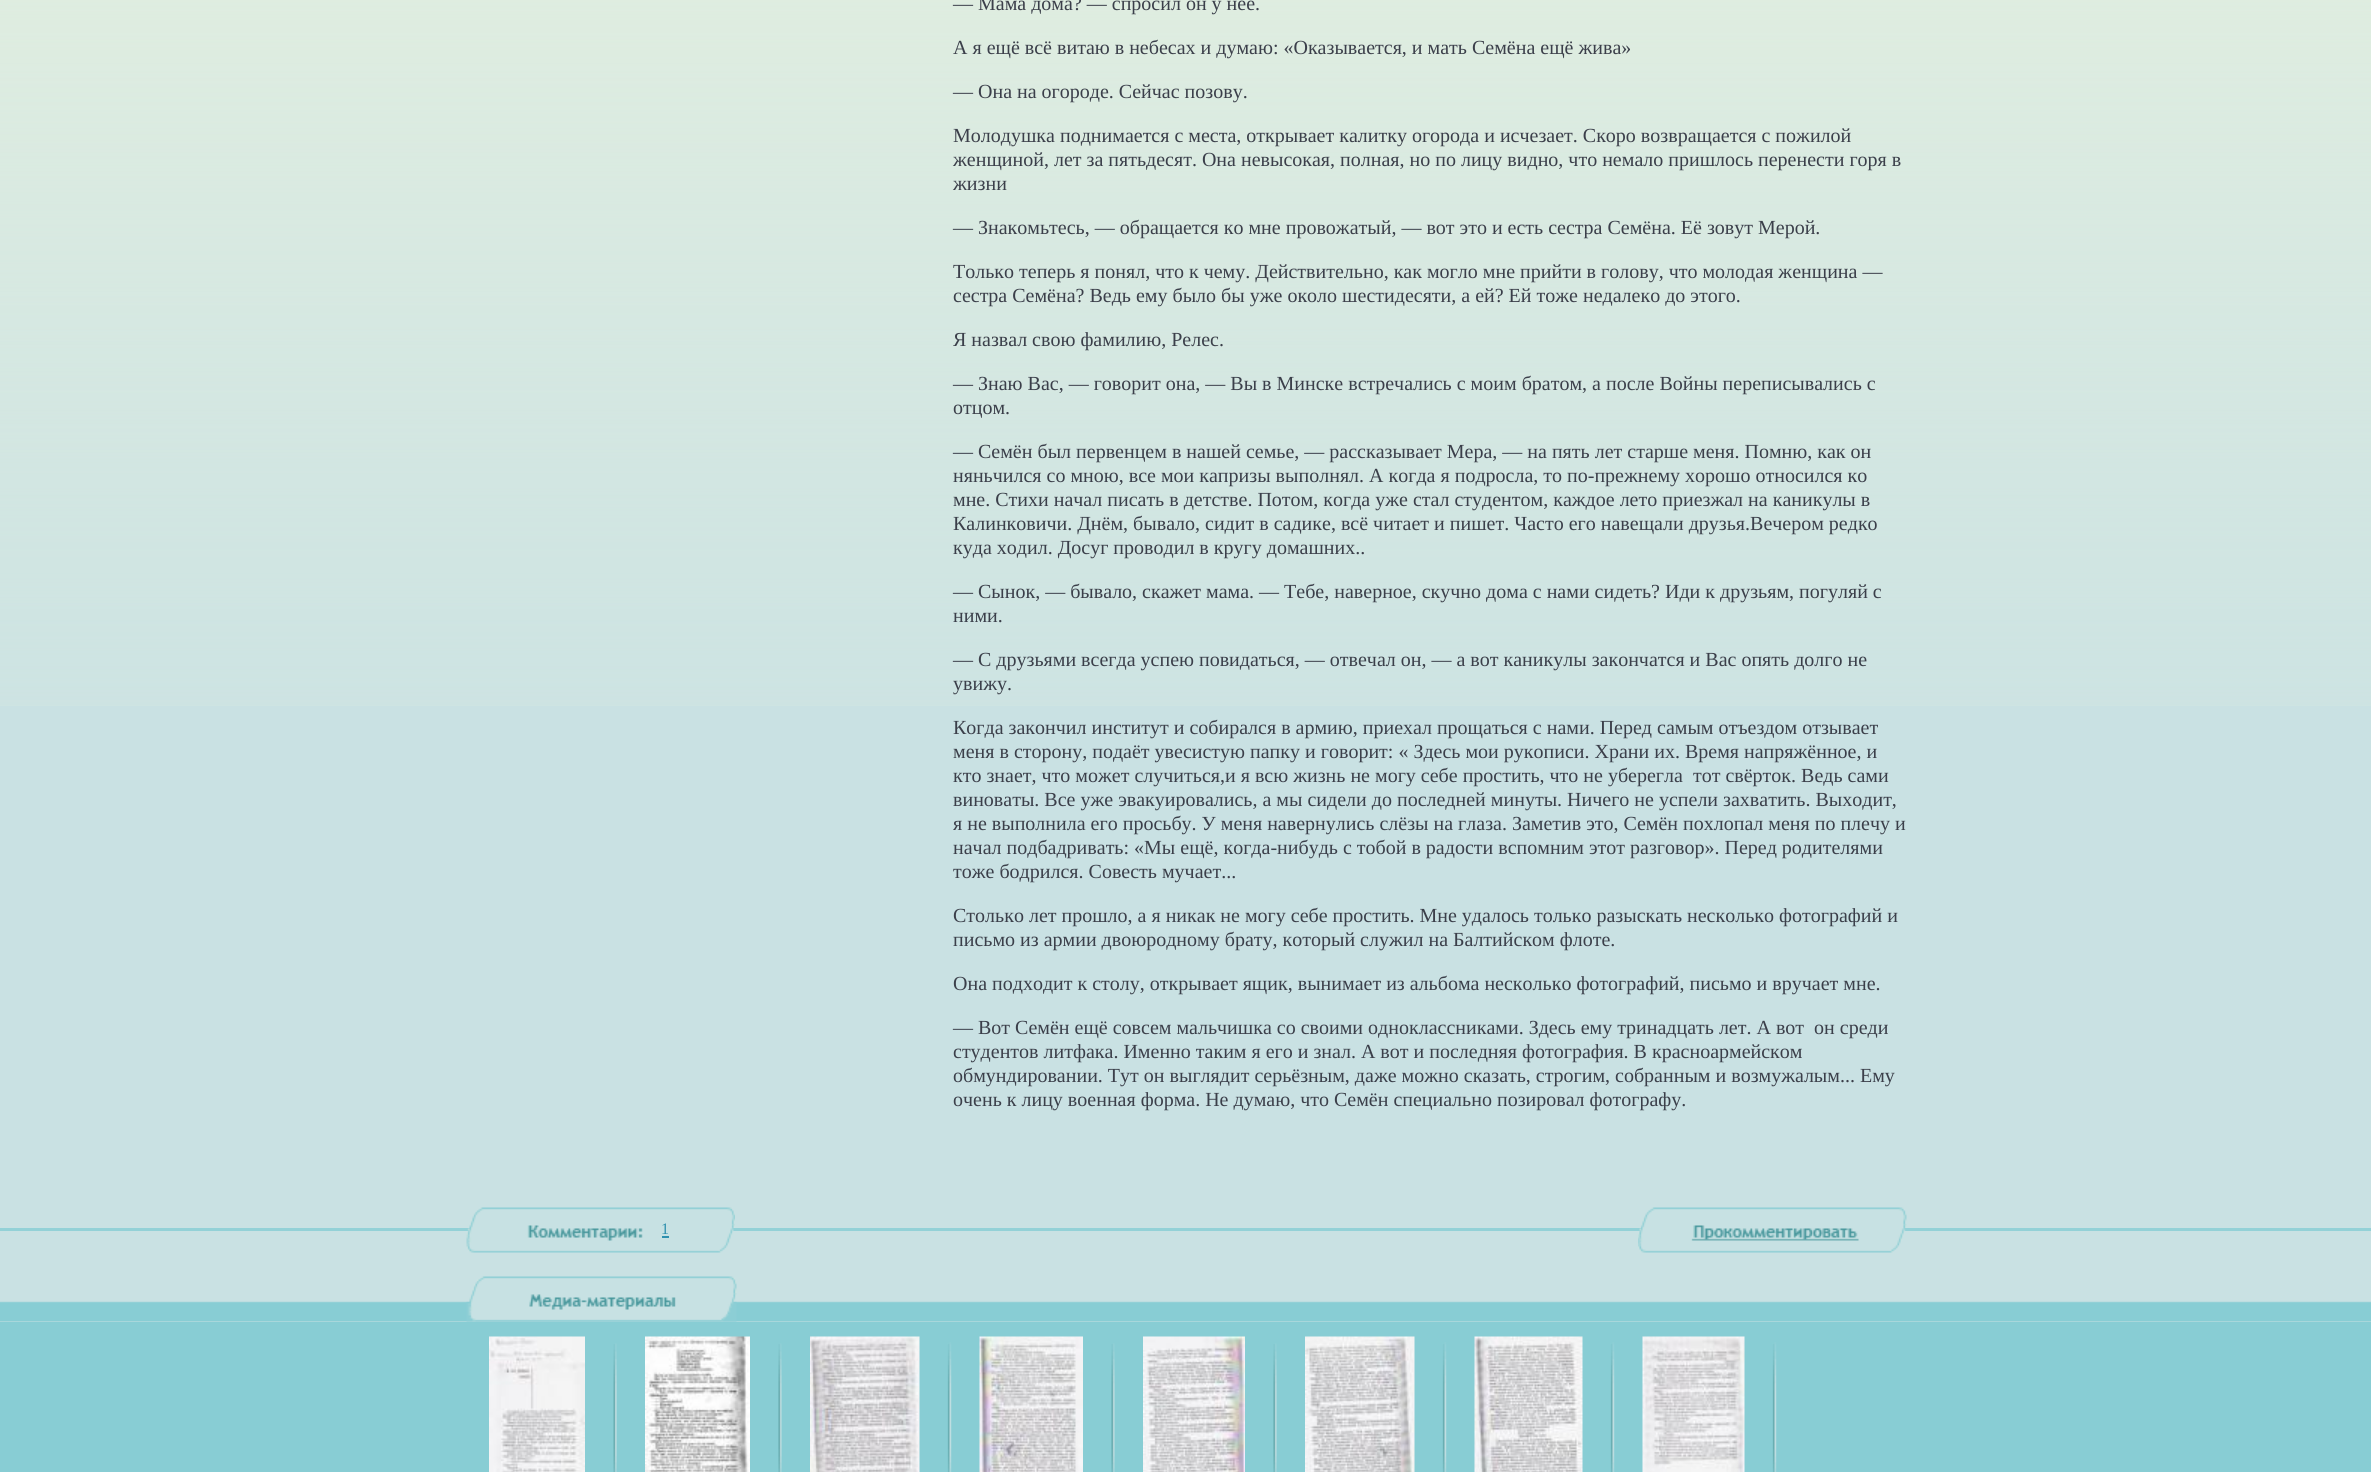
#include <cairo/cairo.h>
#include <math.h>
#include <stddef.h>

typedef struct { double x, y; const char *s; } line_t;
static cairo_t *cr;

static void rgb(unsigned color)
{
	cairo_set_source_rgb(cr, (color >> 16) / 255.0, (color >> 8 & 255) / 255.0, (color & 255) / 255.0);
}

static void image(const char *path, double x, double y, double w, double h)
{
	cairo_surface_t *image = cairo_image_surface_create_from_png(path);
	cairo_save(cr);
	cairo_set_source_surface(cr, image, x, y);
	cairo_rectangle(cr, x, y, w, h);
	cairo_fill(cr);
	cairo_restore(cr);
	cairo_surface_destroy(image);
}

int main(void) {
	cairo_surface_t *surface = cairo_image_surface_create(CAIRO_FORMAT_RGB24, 2371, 1472);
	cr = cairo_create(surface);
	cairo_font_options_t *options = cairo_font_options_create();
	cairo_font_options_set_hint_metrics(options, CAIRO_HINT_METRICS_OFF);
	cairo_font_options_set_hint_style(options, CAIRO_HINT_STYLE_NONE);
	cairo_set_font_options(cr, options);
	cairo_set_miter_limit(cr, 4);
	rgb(0xc9e1e3);
	cairo_paint(cr);
	image("img/1.png", 0, 0, 2371, 706);
	rgb(0x93d1d7);
	cairo_rectangle(cr, 0, 1228, 2371, 3);
	cairo_fill(cr);
	image("img/2.png", 466, 1207, 269, 46);
	rgb(0x2e90ae);
	cairo_rectangle(cr, 662, 1236, 7, 2);
	cairo_fill(cr);
	image("img/3.png", 1638, 1207, 269, 46);
	image("img/4.png", 0, 1301, 2371, 21);
	image("img/5.png", 466, 1276, 271, 46);
	rgb(0x88cdd4);
	cairo_rectangle(cr, 0, 1322, 2371, 150);
	cairo_fill(cr);
	image("img/6.png", 489, 1336, 96, 136);
	image("img/7.png", 613, 1343, 4, 129);
	image("img/8.png", 645, 1336, 105, 136);
	image("img/9.png", 778, 1343, 4, 129);
	image("img/10.png", 810, 1336, 110, 136);
	image("img/11.png", 947, 1342, 5, 130);
	image("img/12.png", 979, 1336, 104, 136);
	image("img/9.png", 1111, 1343, 4, 129);
	image("img/13.png", 1143, 1336, 102, 136);
	image("img/9.png", 1273, 1343, 4, 129);
	image("img/14.png", 1305, 1336, 110, 136);
	image("img/11.png", 1442, 1342, 5, 130);
	image("img/15.png", 1474, 1336, 109, 136);
	image("img/11.png", 1610, 1342, 5, 130);
	image("img/16.png", 1642, 1336, 103, 136);
	image("img/11.png", 1772, 1342, 5, 130);
	cairo_select_font_face(cr, "Liberation Serif", CAIRO_FONT_SLANT_NORMAL, CAIRO_FONT_WEIGHT_NORMAL);
	cairo_set_font_size(cr, 20);
	rgb(0x3b3f4a);
	{
		static const line_t items[] = {
			{953, 10, "— Мама дома? — спросил он у неё."},
			{953, 54, "А я ещё всё витаю в небесах и думаю: «Оказывается, и мать Семёна ещё жива»"},
			{953, 98, "— Она на огороде. Сейчас позову."},
			{953, 142, "Молодушка поднимается с места, открывает калитку огорода и исчезает. Скоро возвращается с пожилой"},
			{953, 166, "женщиной, лет за пятьдесят. Она невысокая, полная, но по лицу видно, что немало пришлось перенести горя в"},
			{953, 190, "жизни"},
			{953, 234, "— Знакомьтесь, — обращается ко мне провожатый, — вот это и есть сестра Семёна. Её зовут Мерой."},
			{953, 278, "Только теперь я понял, что к чему. Действительно, как могло мне прийти в голову, что молодая женщина —"},
			{953, 302, "сестра Семёна? Ведь ему было бы уже около шестидесяти, а ей? Ей тоже недалеко до этого."},
			{953, 346, "Я назвал свою фамилию, Релес."},
			{953, 390, "— Знаю Вас, — говорит она, — Вы в Минске встречались с моим братом, а после Войны переписывались с"},
			{953, 414, "отцом."},
			{953, 458, "— Семён был первенцем в нашей семье, — рассказывает Мера, — на пять лет старше меня. Помню, как он"},
			{953, 482, "няньчился со мною, все мои капризы выполнял. А когда я подросла, то по-прежнему хорошо относился ко"},
			{953, 506, "мне. Стихи начал писать в детстве. Потом, когда уже стал студентом, каждое лето приезжал на каникулы в"},
			{953, 530, "Калинковичи. Днём, бывало, сидит в садике, всё читает и пишет. Часто его навещали друзья.Вечером редко"},
			{953, 554, "куда ходил. Досуг проводил в кругу домашних.."},
			{953, 598, "— Сынок, — бывало, скажет мама. — Тебе, наверное, скучно дома с нами сидеть? Иди к друзьям, погуляй с"},
			{953, 622, "ними."},
			{953, 666, "— С друзьями всегда успею повидаться, — отвечал он, — а вот каникулы закончатся и Вас опять долго не"},
			{953, 690, "увижу."},
			{953, 734, "Когда закончил институт и собирался в армию, приехал прощаться с нами. Перед самым отъездом отзывает"},
			{953, 758, "меня в сторону, подаёт увесистую папку и говорит: « Здесь мои рукописи. Храни их. Время напряжённое, и"},
			{953, 782, "кто знает, что может случиться,и я всю жизнь не могу себе простить, что не уберегла  тот свёрток. Ведь сами"},
			{953, 806, "виноваты. Все уже эвакуировались, а мы сидели до последней минуты. Ничего не успели захватить. Выходит,"},
			{953, 830, "я не выполнила его просьбу. У меня навернулись слёзы на глаза. Заметив это, Семён похлопал меня по плечу и"},
			{953, 854, "начал подбадривать: «Мы ещё, когда-нибудь с тобой в радости вспомним этот разговор». Перед родителями"},
			{953, 878, "тоже бодрился. Совесть мучает..."},
			{953, 922, "Столько лет прошло, а я никак не могу себе простить. Мне удалось только разыскать несколько фотографий и"},
			{953, 946, "письмо из армии двоюродному брату, который служил на Балтийском флоте."},
			{953, 990, "Она подходит к столу, открывает ящик, вынимает из альбома несколько фотографий, письмо и вручает мне."},
			{953, 1034, "— Вот Семён ещё совсем мальчишка со своими одноклассниками. Здесь ему тринадцать лет. А вот  он среди"},
			{953, 1058, "студентов литфака. Именно таким я его и знал. А вот и последняя фотография. В красноармейском"},
			{953, 1082, "обмундировании. Тут он выглядит серьёзным, даже можно сказать, строгим, собранным и возмужалым... Ему"},
			{953, 1106, "очень к лицу военная форма. Не думаю, что Семён специально позировал фотографу."},
		};
		for (size_t i = 0; i < sizeof items / sizeof *items; i++) {
			cairo_move_to(cr, items[i].x, items[i].y);
			cairo_show_text(cr, items[i].s);
		}
	}
	cairo_set_font_size(cr, 16);
	rgb(0x2e90ae);
	cairo_move_to(cr, 661, 1234);
	cairo_show_text(cr, "1");
	cairo_surface_write_to_png(surface, "page.png");
	cairo_font_options_destroy(options);
	cairo_destroy(cr);
	cairo_surface_destroy(surface);
	return 0;
}
